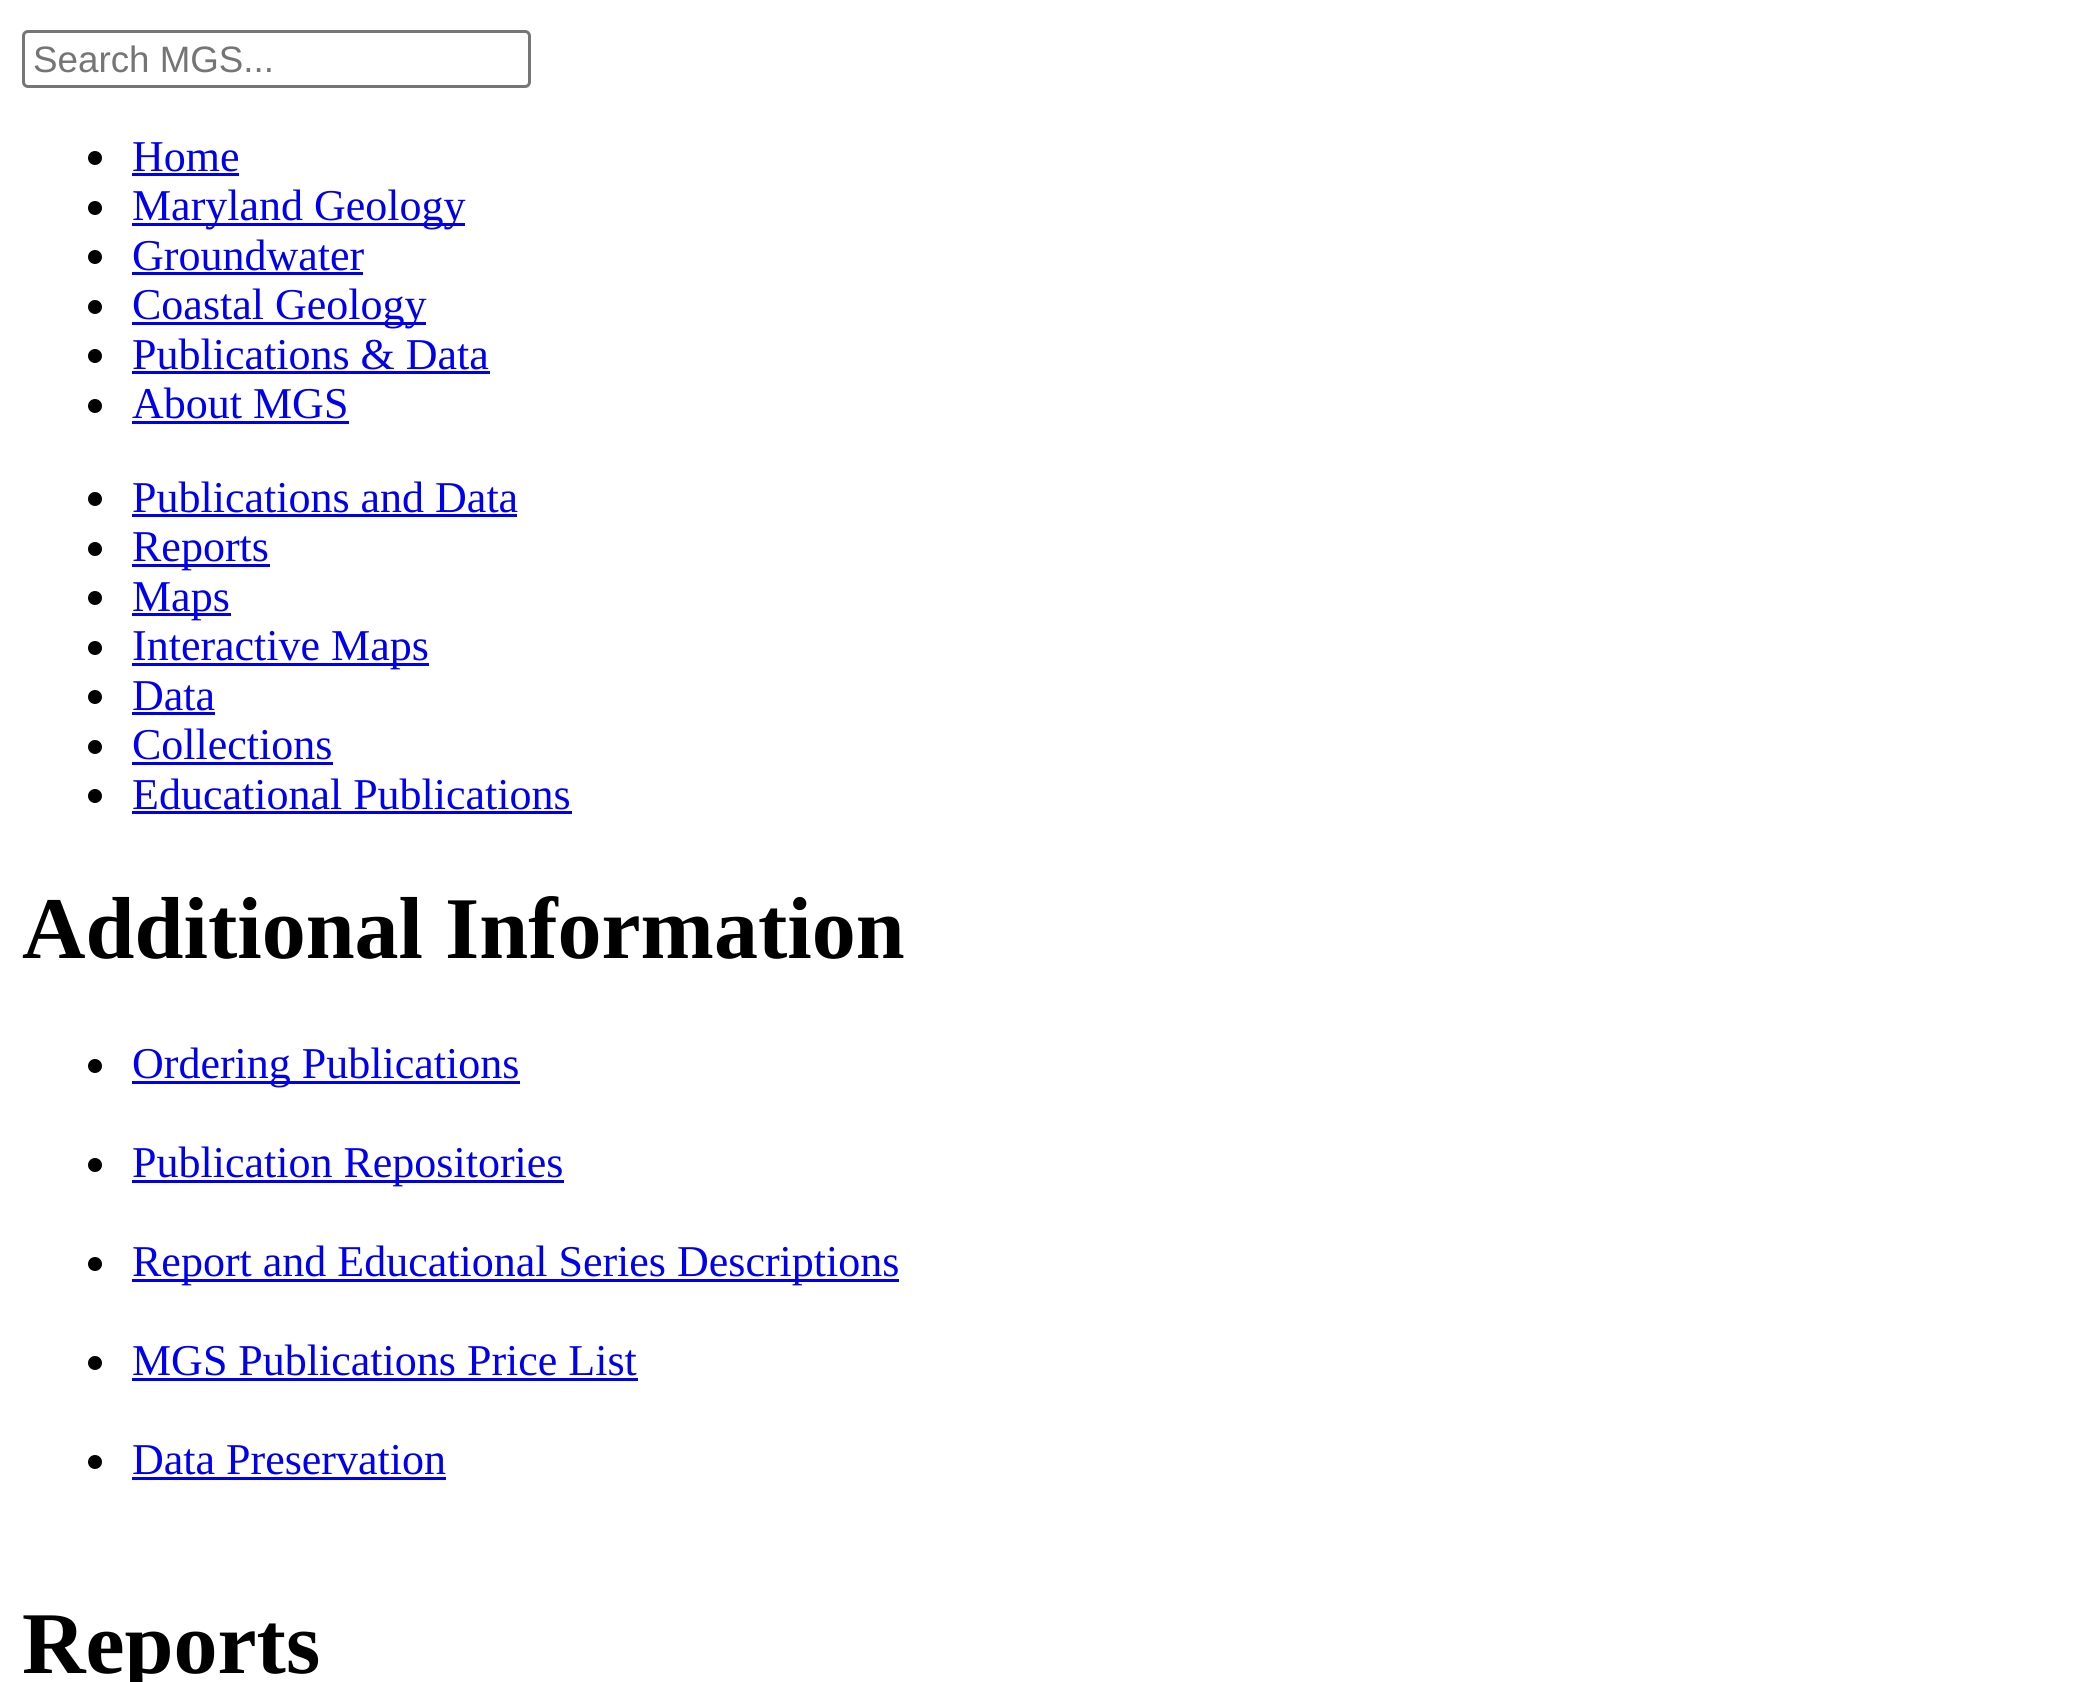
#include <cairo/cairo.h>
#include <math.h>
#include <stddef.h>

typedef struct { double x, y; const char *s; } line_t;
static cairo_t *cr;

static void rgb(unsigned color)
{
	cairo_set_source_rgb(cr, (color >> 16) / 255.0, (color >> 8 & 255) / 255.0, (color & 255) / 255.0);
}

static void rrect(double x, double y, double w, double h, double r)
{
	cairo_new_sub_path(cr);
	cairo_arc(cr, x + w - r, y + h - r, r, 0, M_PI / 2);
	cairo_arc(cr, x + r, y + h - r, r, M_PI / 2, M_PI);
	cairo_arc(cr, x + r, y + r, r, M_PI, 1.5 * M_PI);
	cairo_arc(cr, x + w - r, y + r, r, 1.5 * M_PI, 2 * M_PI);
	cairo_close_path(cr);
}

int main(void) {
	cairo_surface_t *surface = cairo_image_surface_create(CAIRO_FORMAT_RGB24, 2074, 1682);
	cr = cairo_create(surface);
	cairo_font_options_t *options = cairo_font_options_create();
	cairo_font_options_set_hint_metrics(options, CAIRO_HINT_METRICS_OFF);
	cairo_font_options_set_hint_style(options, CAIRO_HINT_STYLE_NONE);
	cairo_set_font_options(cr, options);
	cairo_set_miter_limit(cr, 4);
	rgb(0xffffff);
	cairo_paint(cr);
	rrect(23.5, 31.5, 506, 55, 4.5);
	rgb(0x767676);
	cairo_set_line_width(cr, 3);
	cairo_stroke(cr);
	rgb(0x000000);
	cairo_arc(cr, 95, 158, 7, 0, 2 * M_PI);
	cairo_fill(cr);
	rgb(0x0000ee);
	cairo_rectangle(cr, 132, 173, 107, 3);
	cairo_fill(cr);
	rgb(0x000000);
	cairo_arc(cr, 95, 208, 7, 0, 2 * M_PI);
	cairo_fill(cr);
	rgb(0x0000ee);
	cairo_rectangle(cr, 132, 223, 333, 3);
	cairo_fill(cr);
	rgb(0x000000);
	cairo_arc(cr, 95, 257, 7, 0, 2 * M_PI);
	cairo_fill(cr);
	rgb(0x0000ee);
	cairo_rectangle(cr, 132, 272, 231, 3);
	cairo_fill(cr);
	rgb(0x000000);
	cairo_arc(cr, 95, 307, 7, 0, 2 * M_PI);
	cairo_fill(cr);
	rgb(0x0000ee);
	cairo_rectangle(cr, 132, 322, 294, 3);
	cairo_fill(cr);
	rgb(0x000000);
	cairo_arc(cr, 95, 356, 7, 0, 2 * M_PI);
	cairo_fill(cr);
	rgb(0x0000ee);
	cairo_rectangle(cr, 132, 371, 358, 3);
	cairo_fill(cr);
	rgb(0x000000);
	cairo_arc(cr, 95, 406, 7, 0, 2 * M_PI);
	cairo_fill(cr);
	rgb(0x0000ee);
	cairo_rectangle(cr, 132, 421, 217, 3);
	cairo_fill(cr);
	rgb(0x000000);
	cairo_arc(cr, 95, 499, 7, 0, 2 * M_PI);
	cairo_fill(cr);
	rgb(0x0000ee);
	cairo_rectangle(cr, 132, 514, 385, 3);
	cairo_fill(cr);
	rgb(0x000000);
	cairo_arc(cr, 95, 549, 7, 0, 2 * M_PI);
	cairo_fill(cr);
	rgb(0x0000ee);
	cairo_rectangle(cr, 132, 564, 138, 3);
	cairo_fill(cr);
	rgb(0x000000);
	cairo_arc(cr, 95, 598, 7, 0, 2 * M_PI);
	cairo_fill(cr);
	rgb(0x0000ee);
	cairo_rectangle(cr, 132, 613, 99, 3);
	cairo_fill(cr);
	rgb(0x000000);
	cairo_arc(cr, 95, 648, 7, 0, 2 * M_PI);
	cairo_fill(cr);
	rgb(0x0000ee);
	cairo_rectangle(cr, 132, 663, 297, 3);
	cairo_fill(cr);
	rgb(0x000000);
	cairo_arc(cr, 95, 697, 7, 0, 2 * M_PI);
	cairo_fill(cr);
	rgb(0x0000ee);
	cairo_rectangle(cr, 132, 712, 83, 3);
	cairo_fill(cr);
	rgb(0x000000);
	cairo_arc(cr, 95, 747, 7, 0, 2 * M_PI);
	cairo_fill(cr);
	rgb(0x0000ee);
	cairo_rectangle(cr, 132, 762, 201, 3);
	cairo_fill(cr);
	rgb(0x000000);
	cairo_arc(cr, 95, 796, 7, 0, 2 * M_PI);
	cairo_fill(cr);
	rgb(0x0000ee);
	cairo_rectangle(cr, 132, 811, 440, 3);
	cairo_fill(cr);
	rgb(0x000000);
	cairo_arc(cr, 95, 1066, 7, 0, 2 * M_PI);
	cairo_fill(cr);
	rgb(0x0000ee);
	cairo_rectangle(cr, 132, 1081, 388, 3);
	cairo_fill(cr);
	rgb(0x000000);
	cairo_arc(cr, 95, 1165, 7, 0, 2 * M_PI);
	cairo_fill(cr);
	rgb(0x0000ee);
	cairo_rectangle(cr, 132, 1180, 432, 3);
	cairo_fill(cr);
	rgb(0x000000);
	cairo_arc(cr, 95, 1264, 7, 0, 2 * M_PI);
	cairo_fill(cr);
	rgb(0x0000ee);
	cairo_rectangle(cr, 132, 1279, 767, 3);
	cairo_fill(cr);
	rgb(0x000000);
	cairo_arc(cr, 95, 1363, 7, 0, 2 * M_PI);
	cairo_fill(cr);
	rgb(0x0000ee);
	cairo_rectangle(cr, 132, 1378, 506, 3);
	cairo_fill(cr);
	rgb(0x000000);
	cairo_arc(cr, 95, 1462, 7, 0, 2 * M_PI);
	cairo_fill(cr);
	rgb(0x0000ee);
	cairo_rectangle(cr, 132, 1477, 314, 3);
	cairo_fill(cr);
	cairo_select_font_face(cr, "Liberation Sans", CAIRO_FONT_SLANT_NORMAL, CAIRO_FONT_WEIGHT_NORMAL);
	cairo_set_font_size(cr, 36.75);
	rgb(0x757575);
	cairo_move_to(cr, 33, 72);
	cairo_show_text(cr, "Search MGS...");
	cairo_select_font_face(cr, "Liberation Serif", CAIRO_FONT_SLANT_NORMAL, CAIRO_FONT_WEIGHT_NORMAL);
	cairo_set_font_size(cr, 44);
	rgb(0x0000ee);
	{
		static const line_t items[] = {
			{132, 171, "Home"},
			{132, 220, "Maryland Geology"},
			{132, 270, "Groundwater"},
			{132, 319, "Coastal Geology"},
			{132, 369, "Publications & Data"},
			{132, 418, "About MGS"},
			{132, 512, "Publications and Data"},
			{132, 561, "Reports"},
			{132, 611, "Maps"},
			{132, 660, "Interactive Maps"},
			{132, 710, "Data"},
			{132, 759, "Collections"},
			{132, 809, "Educational Publications"},
		};
		for (size_t i = 0; i < sizeof items / sizeof *items; i++) {
			cairo_move_to(cr, items[i].x, items[i].y);
			cairo_show_text(cr, items[i].s);
		}
	}
	cairo_select_font_face(cr, "Liberation Serif", CAIRO_FONT_SLANT_NORMAL, CAIRO_FONT_WEIGHT_BOLD);
	cairo_set_font_size(cr, 88);
	rgb(0x000000);
	cairo_move_to(cr, 22, 958);
	cairo_show_text(cr, "Additional Information");
	cairo_select_font_face(cr, "Liberation Serif", CAIRO_FONT_SLANT_NORMAL, CAIRO_FONT_WEIGHT_NORMAL);
	cairo_set_font_size(cr, 44);
	rgb(0x0000ee);
	{
		static const line_t items[] = {
			{132, 1078, "Ordering Publications"},
			{132, 1177, "Publication Repositories"},
			{132, 1276, "Report and Educational Series Descriptions"},
			{132, 1375, "MGS Publications Price List"},
			{132, 1474, "Data Preservation"},
		};
		for (size_t i = 0; i < sizeof items / sizeof *items; i++) {
			cairo_move_to(cr, items[i].x, items[i].y);
			cairo_show_text(cr, items[i].s);
		}
	}
	cairo_select_font_face(cr, "Liberation Serif", CAIRO_FONT_SLANT_NORMAL, CAIRO_FONT_WEIGHT_BOLD);
	cairo_set_font_size(cr, 88);
	rgb(0x000000);
	cairo_move_to(cr, 22, 1673);
	cairo_show_text(cr, "Reports");
	cairo_surface_write_to_png(surface, "page.png");
	cairo_font_options_destroy(options);
	cairo_destroy(cr);
	cairo_surface_destroy(surface);
	return 0;
}
